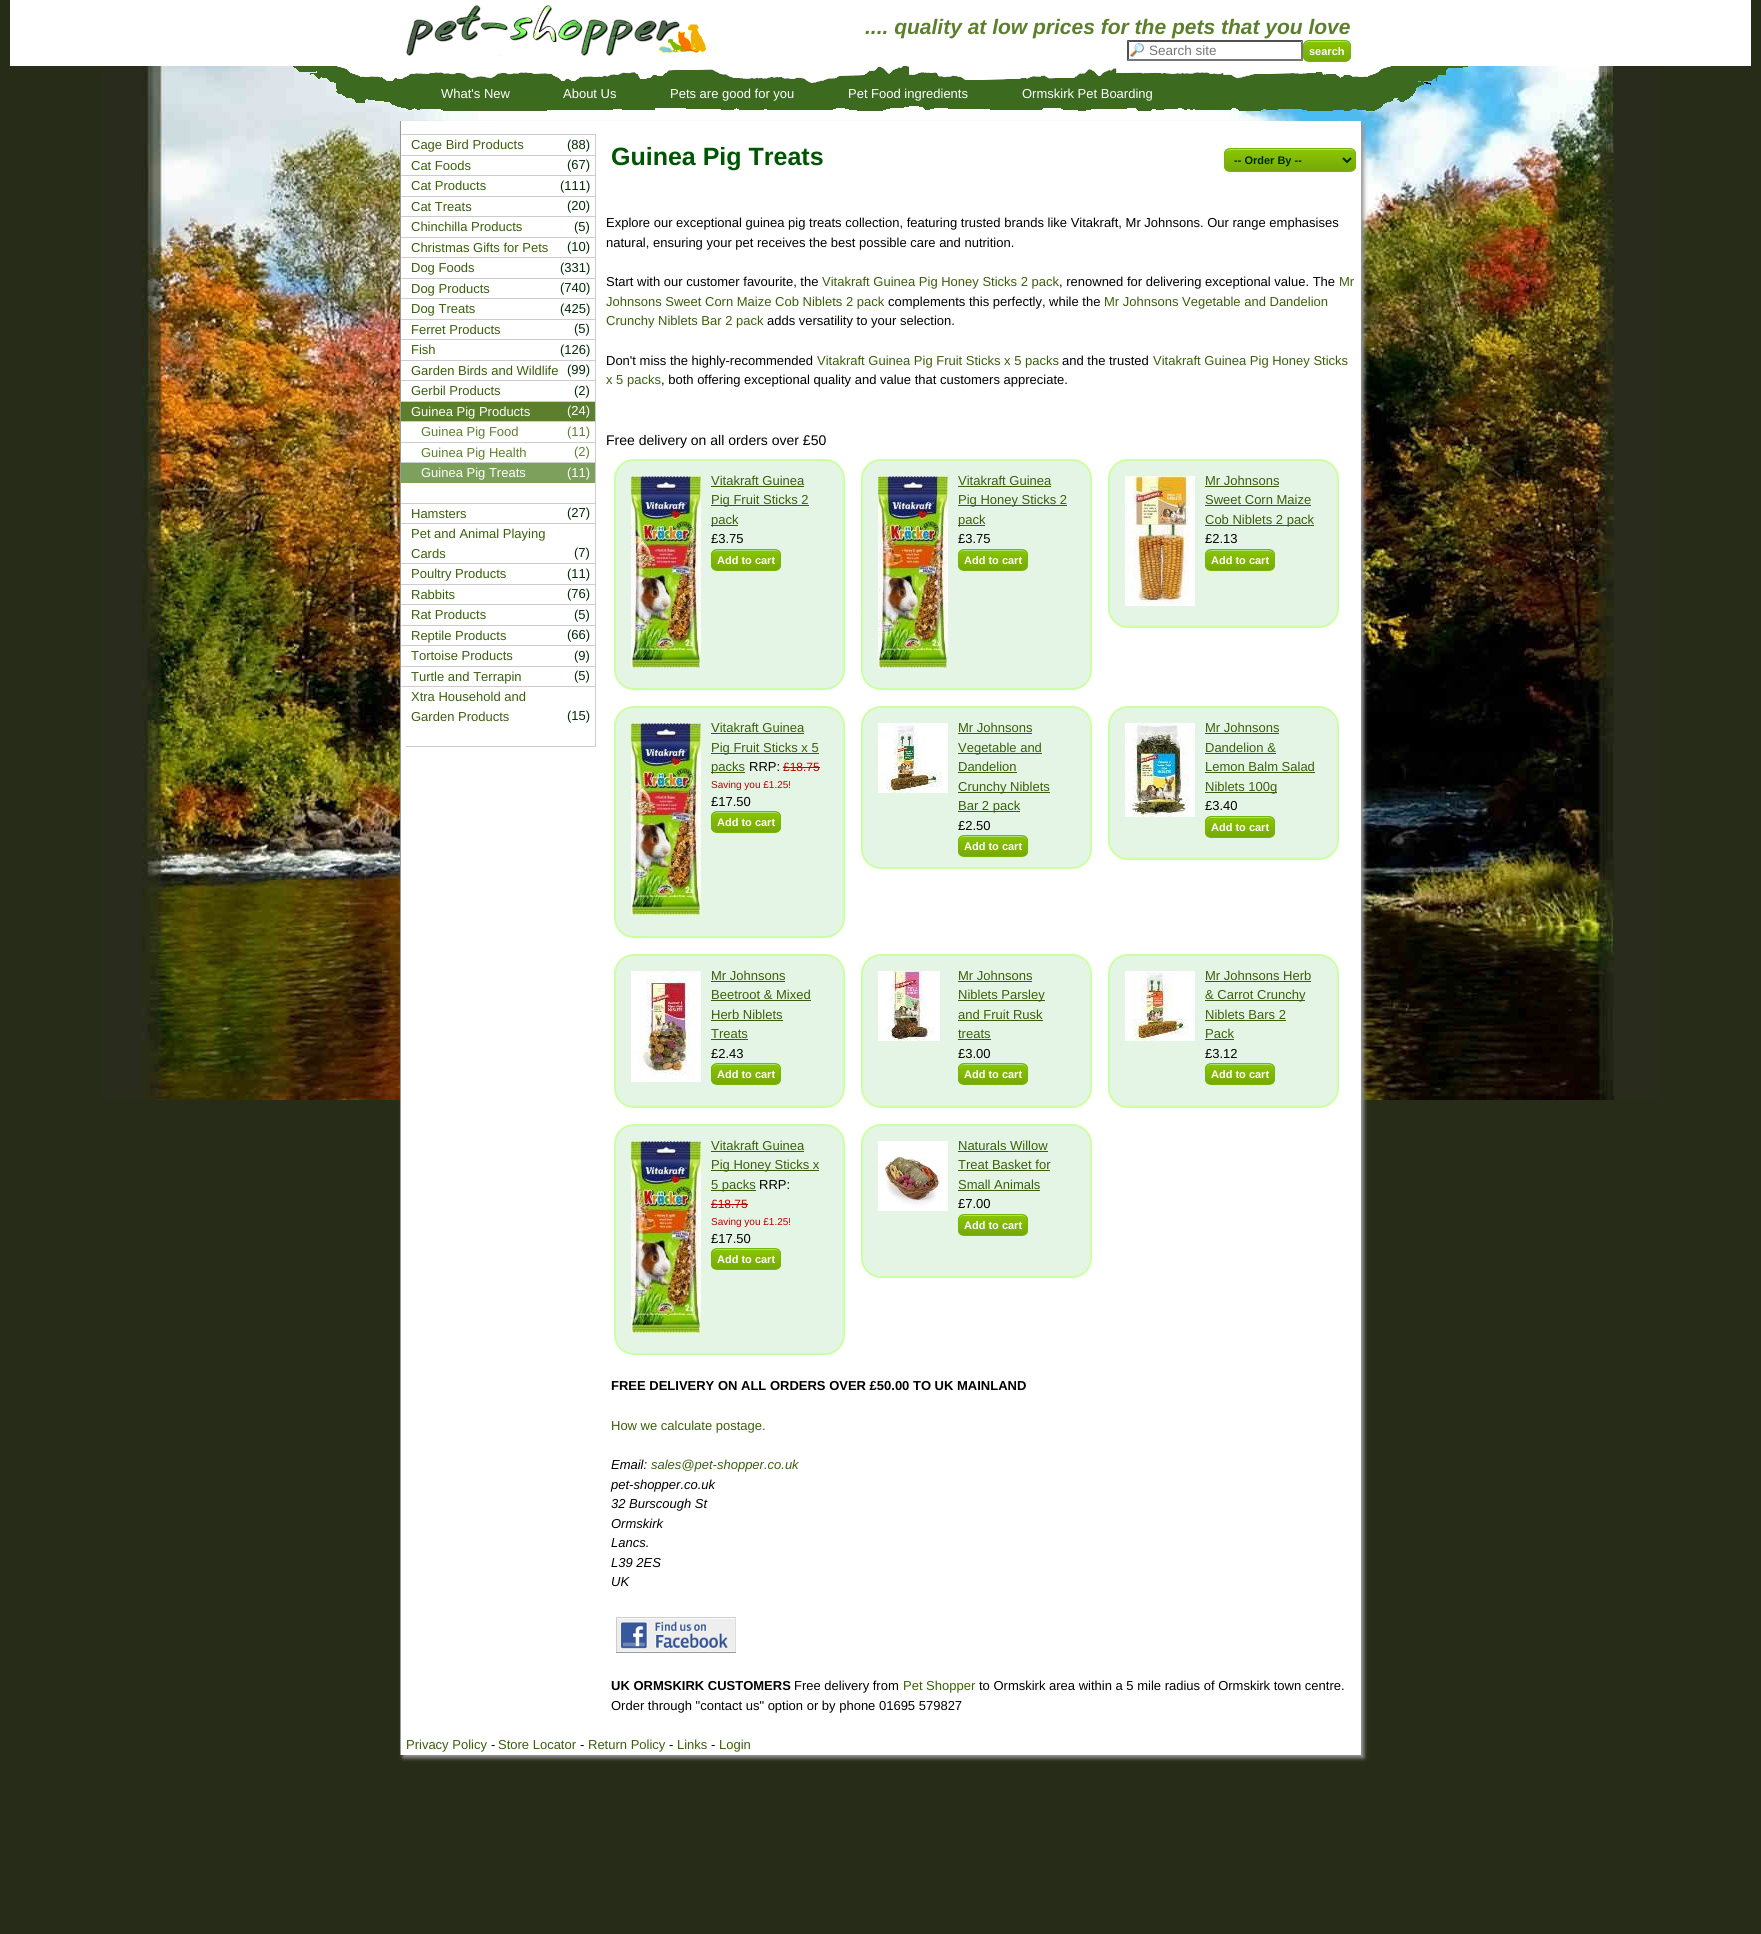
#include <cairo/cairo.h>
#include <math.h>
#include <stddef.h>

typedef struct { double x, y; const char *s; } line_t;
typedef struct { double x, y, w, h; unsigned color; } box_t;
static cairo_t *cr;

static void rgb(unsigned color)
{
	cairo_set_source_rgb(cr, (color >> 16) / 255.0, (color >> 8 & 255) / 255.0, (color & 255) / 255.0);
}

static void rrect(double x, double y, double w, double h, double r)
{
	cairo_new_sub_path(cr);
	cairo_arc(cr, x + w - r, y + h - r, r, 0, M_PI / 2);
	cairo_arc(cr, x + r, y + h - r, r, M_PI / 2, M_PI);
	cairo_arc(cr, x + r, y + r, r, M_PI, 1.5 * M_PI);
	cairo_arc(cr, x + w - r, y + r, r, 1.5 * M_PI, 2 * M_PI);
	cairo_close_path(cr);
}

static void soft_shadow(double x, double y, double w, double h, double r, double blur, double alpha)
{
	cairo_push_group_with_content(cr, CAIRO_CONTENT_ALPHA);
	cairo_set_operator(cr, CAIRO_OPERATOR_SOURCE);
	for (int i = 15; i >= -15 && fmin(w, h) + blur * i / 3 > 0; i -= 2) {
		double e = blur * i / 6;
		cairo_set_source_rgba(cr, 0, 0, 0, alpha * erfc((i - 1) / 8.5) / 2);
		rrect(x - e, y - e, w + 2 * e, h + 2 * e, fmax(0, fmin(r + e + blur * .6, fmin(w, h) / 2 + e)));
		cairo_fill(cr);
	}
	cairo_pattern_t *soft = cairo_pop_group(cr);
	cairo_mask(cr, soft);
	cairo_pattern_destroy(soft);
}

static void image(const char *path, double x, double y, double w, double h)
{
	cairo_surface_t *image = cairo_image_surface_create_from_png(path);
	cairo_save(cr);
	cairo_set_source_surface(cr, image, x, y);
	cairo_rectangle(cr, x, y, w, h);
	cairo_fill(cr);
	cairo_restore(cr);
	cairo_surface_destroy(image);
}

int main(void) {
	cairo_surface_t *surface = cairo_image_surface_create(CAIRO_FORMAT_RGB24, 1761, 1934);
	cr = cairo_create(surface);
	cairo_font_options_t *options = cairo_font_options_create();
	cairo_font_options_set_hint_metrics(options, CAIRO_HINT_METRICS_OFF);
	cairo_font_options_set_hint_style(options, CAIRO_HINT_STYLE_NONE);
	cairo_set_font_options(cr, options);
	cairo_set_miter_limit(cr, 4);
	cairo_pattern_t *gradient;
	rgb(0x272c18);
	cairo_paint(cr);
	image("img/1.png", 102, 66, 1558, 1034);
	rgb(0xffffff);
	cairo_rectangle(cr, 10, 0, 1741, 66);
	cairo_fill(cr);
	image("img/2.png", 406, 5, 300, 51);
	image("img/3.png", 1130, 43, 14, 14);
	rgb(0x4f4f4f);
	cairo_new_path(cr);
	cairo_move_to(cr, 1127, 40);
	cairo_line_to(cr, 1303, 40);
	cairo_line_to(cr, 1301, 42);
	cairo_line_to(cr, 1129, 42);
	cairo_close_path(cr);
	cairo_fill(cr);
	rgb(0x767676);
	cairo_new_path(cr);
	cairo_move_to(cr, 1303, 40);
	cairo_line_to(cr, 1303, 61);
	cairo_line_to(cr, 1301, 59);
	cairo_line_to(cr, 1301, 42);
	cairo_close_path(cr);
	cairo_fill(cr);
	cairo_new_path(cr);
	cairo_move_to(cr, 1303, 61);
	cairo_line_to(cr, 1127, 61);
	cairo_line_to(cr, 1129, 59);
	cairo_line_to(cr, 1301, 59);
	cairo_close_path(cr);
	cairo_fill(cr);
	rgb(0x4f4f4f);
	cairo_new_path(cr);
	cairo_move_to(cr, 1127, 61);
	cairo_line_to(cr, 1127, 40);
	cairo_line_to(cr, 1129, 42);
	cairo_line_to(cr, 1129, 59);
	cairo_close_path(cr);
	cairo_fill(cr);
	cairo_save(cr);
	rrect(1303, 40, 48, 22, 6);
	cairo_clip(cr);
	gradient = cairo_pattern_create_linear(1304, 41, 1304, 61);
	cairo_pattern_add_color_stop_rgba(gradient, 0.05, 0.537, 0.769, 0.012, 1);
	cairo_pattern_add_color_stop_rgba(gradient, 1, 0.467, 0.659, 0.035, 1);
	cairo_set_source(cr, gradient);
	cairo_pattern_destroy(gradient);
	cairo_rectangle(cr, 1303, 41, 48, 20);
	cairo_fill(cr);
	cairo_restore(cr);
	rgb(0xa4e271);
	cairo_new_path(cr);
	cairo_move_to(cr, 1309, 42);
	cairo_line_to(cr, 1345, 42);
	cairo_curve_to(cr, 1348, 42, 1350, 44, 1350, 47);
	cairo_curve_to(cr, 1350, 40, 1345, 41, 1339, 41);
	cairo_line_to(cr, 1315, 41);
	cairo_curve_to(cr, 1309, 41, 1304, 40, 1304, 47);
	cairo_curve_to(cr, 1304, 44, 1306, 42, 1309, 42);
	cairo_close_path(cr);
	cairo_fill(cr);
	rrect(1303.5, 40.5, 47, 21, 5.5);
	rgb(0x74b807);
	cairo_set_line_width(cr, 1);
	cairo_stroke(cr);
	image("img/4.png", 293, 66, 1175, 45);
	rgb(0x999999);
	soft_shadow(403, 124, 961, 1634, 0, 2, 1);
	{
		static const box_t items[] = {
			{401, 121, 960, 1634, 0xffffff},
			{400, 121, 1, 1634, 0x999999},
			{595, 134, 1, 613, 0xcccccc},
			{406, 746, 190, 1, 0xcccccc},
			{401, 134, 194, 1, 0xcccccc},
			{401, 155, 194, 1, 0xcccccc},
			{401, 175, 194, 1, 0xcccccc},
			{401, 196, 194, 1, 0xcccccc},
			{401, 216, 194, 1, 0xcccccc},
			{401, 237, 194, 1, 0xcccccc},
			{401, 257, 194, 1, 0xcccccc},
			{401, 278, 194, 1, 0xcccccc},
			{401, 298, 194, 1, 0xcccccc},
			{401, 319, 194, 1, 0xcccccc},
			{401, 339, 194, 1, 0xcccccc},
			{401, 360, 194, 1, 0xcccccc},
			{401, 380, 194, 1, 0xcccccc},
			{401, 402, 194, 19, 0x5c7f2d},
			{401, 401, 194, 1, 0xcccccc},
			{401, 421, 194, 1, 0xcccccc},
			{401, 442, 194, 1, 0xcccccc},
			{401, 463, 194, 20, 0x7da05d},
			{401, 462, 194, 1, 0xcccccc},
			{401, 503, 194, 1, 0xcccccc},
			{401, 523, 194, 1, 0xcccccc},
			{401, 563, 194, 1, 0xcccccc},
			{401, 584, 194, 1, 0xcccccc},
			{401, 604, 194, 1, 0xcccccc},
			{401, 625, 194, 1, 0xcccccc},
			{401, 645, 194, 1, 0xcccccc},
			{401, 666, 194, 1, 0xcccccc},
			{401, 686, 194, 1, 0xcccccc},
		};
		for (size_t i = 0; i < sizeof items / sizeof *items; i++) {
			rgb(items[i].color);
			cairo_rectangle(cr, items[i].x, items[i].y, items[i].w, items[i].h);
			cairo_fill(cr);
		}
	}
	cairo_save(cr);
	rrect(1224, 148, 132, 24, 6);
	cairo_clip(cr);
	gradient = cairo_pattern_create_linear(1225, 149, 1225, 171);
	cairo_pattern_add_color_stop_rgba(gradient, 0.05, 0.537, 0.769, 0.012, 1);
	cairo_pattern_add_color_stop_rgba(gradient, 1, 0.467, 0.659, 0.035, 1);
	cairo_set_source(cr, gradient);
	cairo_pattern_destroy(gradient);
	cairo_rectangle(cr, 1224, 149, 132, 22);
	cairo_fill(cr);
	cairo_restore(cr);
	rgb(0xa4e271);
	cairo_new_path(cr);
	cairo_move_to(cr, 1230, 150);
	cairo_line_to(cr, 1350, 150);
	cairo_curve_to(cr, 1353, 150, 1355, 152, 1355, 155);
	cairo_curve_to(cr, 1355, 144, 1334, 149, 1330, 149);
	cairo_line_to(cr, 1250, 149);
	cairo_curve_to(cr, 1246, 149, 1225, 144, 1225, 155);
	cairo_curve_to(cr, 1225, 152, 1227, 150, 1230, 150);
	cairo_close_path(cr);
	cairo_fill(cr);
	rrect(1224.5, 148.5, 131, 23, 5.5);
	rgb(0x74b807);
	cairo_stroke(cr);
	cairo_new_path(cr);
	cairo_move_to(cr, 1343, 158);
	cairo_line_to(cr, 1347, 162);
	cairo_line_to(cr, 1351, 158);
	rgb(0x002a04);
	cairo_set_line_width(cr, 2);
	cairo_stroke(cr);
	rgb(0xe5f5e5);
	rrect(615, 460, 229, 229, 19);
	cairo_fill_preserve(cr);
	rgb(0xcbffa4);
	cairo_stroke(cr);
	image("img/5.png", 631, 476, 70, 192);
	{
		static const box_t items[] = {
			{711, 486, 93, 1, 0x3a5f0b},
			{711, 505, 98, 1, 0x3a5f0b},
			{711, 525, 27, 1, 0x3a5f0b},
		};
		for (size_t i = 0; i < sizeof items / sizeof *items; i++) {
			rgb(items[i].color);
			cairo_rectangle(cr, items[i].x, items[i].y, items[i].w, items[i].h);
			cairo_fill(cr);
		}
	}
	cairo_save(cr);
	rrect(711, 549, 70, 22, 6);
	cairo_clip(cr);
	gradient = cairo_pattern_create_linear(712, 550, 712, 570);
	cairo_pattern_add_color_stop_rgba(gradient, 0.05, 0.537, 0.769, 0.012, 1);
	cairo_pattern_add_color_stop_rgba(gradient, 1, 0.467, 0.659, 0.035, 1);
	cairo_set_source(cr, gradient);
	cairo_pattern_destroy(gradient);
	cairo_rectangle(cr, 711, 550, 70, 20);
	cairo_fill(cr);
	cairo_restore(cr);
	rgb(0xa4e271);
	cairo_new_path(cr);
	cairo_move_to(cr, 717, 551);
	cairo_line_to(cr, 775, 551);
	cairo_curve_to(cr, 778, 551, 780, 553, 780, 556);
	cairo_curve_to(cr, 780, 548, 771, 550, 765, 550);
	cairo_line_to(cr, 727, 550);
	cairo_curve_to(cr, 721, 550, 712, 548, 712, 556);
	cairo_curve_to(cr, 712, 553, 714, 551, 717, 551);
	cairo_close_path(cr);
	cairo_fill(cr);
	rrect(711.5, 549.5, 69, 21, 5.5);
	rgb(0x74b807);
	cairo_set_line_width(cr, 1);
	cairo_stroke(cr);
	rgb(0xe5f5e5);
	rrect(862, 460, 229, 229, 19);
	cairo_fill_preserve(cr);
	rgb(0xcbffa4);
	cairo_set_line_width(cr, 2);
	cairo_stroke(cr);
	image("img/6.png", 878, 476, 70, 192);
	{
		static const box_t items[] = {
			{958, 486, 93, 1, 0x3a5f0b},
			{958, 505, 109, 1, 0x3a5f0b},
			{958, 525, 27, 1, 0x3a5f0b},
		};
		for (size_t i = 0; i < sizeof items / sizeof *items; i++) {
			rgb(items[i].color);
			cairo_rectangle(cr, items[i].x, items[i].y, items[i].w, items[i].h);
			cairo_fill(cr);
		}
	}
	cairo_save(cr);
	rrect(958, 549, 70, 22, 6);
	cairo_clip(cr);
	gradient = cairo_pattern_create_linear(959, 550, 959, 570);
	cairo_pattern_add_color_stop_rgba(gradient, 0.05, 0.537, 0.769, 0.012, 1);
	cairo_pattern_add_color_stop_rgba(gradient, 1, 0.467, 0.659, 0.035, 1);
	cairo_set_source(cr, gradient);
	cairo_pattern_destroy(gradient);
	cairo_rectangle(cr, 958, 550, 70, 20);
	cairo_fill(cr);
	cairo_restore(cr);
	rgb(0xa4e271);
	cairo_new_path(cr);
	cairo_move_to(cr, 964, 551);
	cairo_line_to(cr, 1022, 551);
	cairo_curve_to(cr, 1025, 551, 1027, 553, 1027, 556);
	cairo_curve_to(cr, 1027, 548, 1018, 550, 1012, 550);
	cairo_line_to(cr, 974, 550);
	cairo_curve_to(cr, 968, 550, 959, 548, 959, 556);
	cairo_curve_to(cr, 959, 553, 961, 551, 964, 551);
	cairo_close_path(cr);
	cairo_fill(cr);
	rrect(958.5, 549.5, 69, 21, 5.5);
	rgb(0x74b807);
	cairo_set_line_width(cr, 1);
	cairo_stroke(cr);
	rgb(0xe5f5e5);
	rrect(1109, 460, 229, 167, 19);
	cairo_fill_preserve(cr);
	rgb(0xcbffa4);
	cairo_set_line_width(cr, 2);
	cairo_stroke(cr);
	image("img/7.png", 1125, 476, 70, 130);
	{
		static const box_t items[] = {
			{1205, 486, 74, 1, 0x3a5f0b},
			{1205, 505, 106, 1, 0x3a5f0b},
			{1205, 525, 109, 1, 0x3a5f0b},
		};
		for (size_t i = 0; i < sizeof items / sizeof *items; i++) {
			rgb(items[i].color);
			cairo_rectangle(cr, items[i].x, items[i].y, items[i].w, items[i].h);
			cairo_fill(cr);
		}
	}
	cairo_save(cr);
	rrect(1205, 549, 70, 22, 6);
	cairo_clip(cr);
	gradient = cairo_pattern_create_linear(1206, 550, 1206, 570);
	cairo_pattern_add_color_stop_rgba(gradient, 0.05, 0.537, 0.769, 0.012, 1);
	cairo_pattern_add_color_stop_rgba(gradient, 1, 0.467, 0.659, 0.035, 1);
	cairo_set_source(cr, gradient);
	cairo_pattern_destroy(gradient);
	cairo_rectangle(cr, 1205, 550, 70, 20);
	cairo_fill(cr);
	cairo_restore(cr);
	rgb(0xa4e271);
	cairo_new_path(cr);
	cairo_move_to(cr, 1211, 551);
	cairo_line_to(cr, 1269, 551);
	cairo_curve_to(cr, 1272, 551, 1274, 553, 1274, 556);
	cairo_curve_to(cr, 1274, 548, 1265, 550, 1259, 550);
	cairo_line_to(cr, 1221, 550);
	cairo_curve_to(cr, 1215, 550, 1206, 548, 1206, 556);
	cairo_curve_to(cr, 1206, 553, 1208, 551, 1211, 551);
	cairo_close_path(cr);
	cairo_fill(cr);
	rrect(1205.5, 549.5, 69, 21, 5.5);
	rgb(0x74b807);
	cairo_set_line_width(cr, 1);
	cairo_stroke(cr);
	rgb(0xe5f5e5);
	rrect(615, 707, 229, 230, 19);
	cairo_fill_preserve(cr);
	rgb(0xcbffa4);
	cairo_set_line_width(cr, 2);
	cairo_stroke(cr);
	image("img/5.png", 631, 723, 70, 192);
	{
		static const box_t items[] = {
			{711, 733, 93, 1, 0x3a5f0b},
			{711, 753, 108, 1, 0x3a5f0b},
			{711, 772, 34, 1, 0x3a5f0b},
			{783, 767, 37, 1, 0xbb0000},
		};
		for (size_t i = 0; i < sizeof items / sizeof *items; i++) {
			rgb(items[i].color);
			cairo_rectangle(cr, items[i].x, items[i].y, items[i].w, items[i].h);
			cairo_fill(cr);
		}
	}
	cairo_save(cr);
	rrect(711, 811, 70, 22, 6);
	cairo_clip(cr);
	gradient = cairo_pattern_create_linear(712, 812, 712, 832);
	cairo_pattern_add_color_stop_rgba(gradient, 0.05, 0.537, 0.769, 0.012, 1);
	cairo_pattern_add_color_stop_rgba(gradient, 1, 0.467, 0.659, 0.035, 1);
	cairo_set_source(cr, gradient);
	cairo_pattern_destroy(gradient);
	cairo_rectangle(cr, 711, 812, 70, 20);
	cairo_fill(cr);
	cairo_restore(cr);
	rgb(0xa4e271);
	cairo_new_path(cr);
	cairo_move_to(cr, 717, 813);
	cairo_line_to(cr, 775, 813);
	cairo_curve_to(cr, 778, 813, 780, 815, 780, 818);
	cairo_curve_to(cr, 780, 810, 771, 812, 765, 812);
	cairo_line_to(cr, 727, 812);
	cairo_curve_to(cr, 721, 812, 712, 810, 712, 818);
	cairo_curve_to(cr, 712, 815, 714, 813, 717, 813);
	cairo_close_path(cr);
	cairo_fill(cr);
	rrect(711.5, 811.5, 69, 21, 5.5);
	rgb(0x74b807);
	cairo_set_line_width(cr, 1);
	cairo_stroke(cr);
	rgb(0xe5f5e5);
	rrect(862, 707, 229, 161, 19);
	cairo_fill_preserve(cr);
	rgb(0xcbffa4);
	cairo_set_line_width(cr, 2);
	cairo_stroke(cr);
	image("img/8.png", 878, 723, 70, 70);
	{
		static const box_t items[] = {
			{958, 733, 74, 1, 0x3a5f0b},
			{958, 753, 84, 1, 0x3a5f0b},
			{958, 772, 59, 1, 0x3a5f0b},
			{958, 792, 92, 1, 0x3a5f0b},
			{958, 811, 62, 1, 0x3a5f0b},
		};
		for (size_t i = 0; i < sizeof items / sizeof *items; i++) {
			rgb(items[i].color);
			cairo_rectangle(cr, items[i].x, items[i].y, items[i].w, items[i].h);
			cairo_fill(cr);
		}
	}
	cairo_save(cr);
	rrect(958, 835, 70, 22, 6);
	cairo_clip(cr);
	gradient = cairo_pattern_create_linear(959, 836, 959, 856);
	cairo_pattern_add_color_stop_rgba(gradient, 0.05, 0.537, 0.769, 0.012, 1);
	cairo_pattern_add_color_stop_rgba(gradient, 1, 0.467, 0.659, 0.035, 1);
	cairo_set_source(cr, gradient);
	cairo_pattern_destroy(gradient);
	cairo_rectangle(cr, 958, 836, 70, 20);
	cairo_fill(cr);
	cairo_restore(cr);
	rgb(0xa4e271);
	cairo_new_path(cr);
	cairo_move_to(cr, 964, 837);
	cairo_line_to(cr, 1022, 837);
	cairo_curve_to(cr, 1025, 837, 1027, 839, 1027, 842);
	cairo_curve_to(cr, 1027, 834, 1018, 836, 1012, 836);
	cairo_line_to(cr, 974, 836);
	cairo_curve_to(cr, 968, 836, 959, 834, 959, 842);
	cairo_curve_to(cr, 959, 839, 961, 837, 964, 837);
	cairo_close_path(cr);
	cairo_fill(cr);
	rrect(958.5, 835.5, 69, 21, 5.5);
	rgb(0x74b807);
	cairo_set_line_width(cr, 1);
	cairo_stroke(cr);
	rgb(0xe5f5e5);
	rrect(1109, 707, 229, 152, 19);
	cairo_fill_preserve(cr);
	rgb(0xcbffa4);
	cairo_set_line_width(cr, 2);
	cairo_stroke(cr);
	image("img/9.png", 1125, 723, 70, 94);
	{
		static const box_t items[] = {
			{1205, 733, 74, 1, 0x3a5f0b},
			{1205, 753, 71, 1, 0x3a5f0b},
			{1205, 772, 110, 1, 0x3a5f0b},
			{1205, 792, 72, 1, 0x3a5f0b},
		};
		for (size_t i = 0; i < sizeof items / sizeof *items; i++) {
			rgb(items[i].color);
			cairo_rectangle(cr, items[i].x, items[i].y, items[i].w, items[i].h);
			cairo_fill(cr);
		}
	}
	cairo_save(cr);
	rrect(1205, 816, 70, 22, 6);
	cairo_clip(cr);
	gradient = cairo_pattern_create_linear(1206, 817, 1206, 837);
	cairo_pattern_add_color_stop_rgba(gradient, 0.05, 0.537, 0.769, 0.012, 1);
	cairo_pattern_add_color_stop_rgba(gradient, 1, 0.467, 0.659, 0.035, 1);
	cairo_set_source(cr, gradient);
	cairo_pattern_destroy(gradient);
	cairo_rectangle(cr, 1205, 817, 70, 20);
	cairo_fill(cr);
	cairo_restore(cr);
	rgb(0xa4e271);
	cairo_new_path(cr);
	cairo_move_to(cr, 1211, 818);
	cairo_line_to(cr, 1269, 818);
	cairo_curve_to(cr, 1272, 818, 1274, 820, 1274, 823);
	cairo_curve_to(cr, 1274, 815, 1265, 817, 1259, 817);
	cairo_line_to(cr, 1221, 817);
	cairo_curve_to(cr, 1215, 817, 1206, 815, 1206, 823);
	cairo_curve_to(cr, 1206, 820, 1208, 818, 1211, 818);
	cairo_close_path(cr);
	cairo_fill(cr);
	rrect(1205.5, 816.5, 69, 21, 5.5);
	rgb(0x74b807);
	cairo_set_line_width(cr, 1);
	cairo_stroke(cr);
	rgb(0xe5f5e5);
	rrect(615, 955, 229, 152, 19);
	cairo_fill_preserve(cr);
	rgb(0xcbffa4);
	cairo_set_line_width(cr, 2);
	cairo_stroke(cr);
	image("img/10.png", 631, 971, 70, 111);
	{
		static const box_t items[] = {
			{711, 981, 74, 1, 0x3a5f0b},
			{711, 1000, 100, 1, 0x3a5f0b},
			{711, 1020, 72, 1, 0x3a5f0b},
			{711, 1039, 37, 1, 0x3a5f0b},
		};
		for (size_t i = 0; i < sizeof items / sizeof *items; i++) {
			rgb(items[i].color);
			cairo_rectangle(cr, items[i].x, items[i].y, items[i].w, items[i].h);
			cairo_fill(cr);
		}
	}
	cairo_save(cr);
	rrect(711, 1063, 70, 22, 6);
	cairo_clip(cr);
	gradient = cairo_pattern_create_linear(712, 1064, 712, 1084);
	cairo_pattern_add_color_stop_rgba(gradient, 0.05, 0.537, 0.769, 0.012, 1);
	cairo_pattern_add_color_stop_rgba(gradient, 1, 0.467, 0.659, 0.035, 1);
	cairo_set_source(cr, gradient);
	cairo_pattern_destroy(gradient);
	cairo_rectangle(cr, 711, 1064, 70, 20);
	cairo_fill(cr);
	cairo_restore(cr);
	rgb(0xa4e271);
	cairo_new_path(cr);
	cairo_move_to(cr, 717, 1065);
	cairo_line_to(cr, 775, 1065);
	cairo_curve_to(cr, 778, 1065, 780, 1067, 780, 1070);
	cairo_curve_to(cr, 780, 1062, 771, 1064, 765, 1064);
	cairo_line_to(cr, 727, 1064);
	cairo_curve_to(cr, 721, 1064, 712, 1062, 712, 1070);
	cairo_curve_to(cr, 712, 1067, 714, 1065, 717, 1065);
	cairo_close_path(cr);
	cairo_fill(cr);
	rrect(711.5, 1063.5, 69, 21, 5.5);
	rgb(0x74b807);
	cairo_set_line_width(cr, 1);
	cairo_stroke(cr);
	rgb(0xe5f5e5);
	rrect(862, 955, 229, 152, 19);
	cairo_fill_preserve(cr);
	rgb(0xcbffa4);
	cairo_set_line_width(cr, 2);
	cairo_stroke(cr);
	image("img/11.png", 878, 971, 62, 70);
	{
		static const box_t items[] = {
			{958, 981, 74, 1, 0x3a5f0b},
			{958, 1000, 87, 1, 0x3a5f0b},
			{958, 1020, 85, 1, 0x3a5f0b},
			{958, 1039, 33, 1, 0x3a5f0b},
		};
		for (size_t i = 0; i < sizeof items / sizeof *items; i++) {
			rgb(items[i].color);
			cairo_rectangle(cr, items[i].x, items[i].y, items[i].w, items[i].h);
			cairo_fill(cr);
		}
	}
	cairo_save(cr);
	rrect(958, 1063, 70, 22, 6);
	cairo_clip(cr);
	gradient = cairo_pattern_create_linear(959, 1064, 959, 1084);
	cairo_pattern_add_color_stop_rgba(gradient, 0.05, 0.537, 0.769, 0.012, 1);
	cairo_pattern_add_color_stop_rgba(gradient, 1, 0.467, 0.659, 0.035, 1);
	cairo_set_source(cr, gradient);
	cairo_pattern_destroy(gradient);
	cairo_rectangle(cr, 958, 1064, 70, 20);
	cairo_fill(cr);
	cairo_restore(cr);
	rgb(0xa4e271);
	cairo_new_path(cr);
	cairo_move_to(cr, 964, 1065);
	cairo_line_to(cr, 1022, 1065);
	cairo_curve_to(cr, 1025, 1065, 1027, 1067, 1027, 1070);
	cairo_curve_to(cr, 1027, 1062, 1018, 1064, 1012, 1064);
	cairo_line_to(cr, 974, 1064);
	cairo_curve_to(cr, 968, 1064, 959, 1062, 959, 1070);
	cairo_curve_to(cr, 959, 1067, 961, 1065, 964, 1065);
	cairo_close_path(cr);
	cairo_fill(cr);
	rrect(958.5, 1063.5, 69, 21, 5.5);
	rgb(0x74b807);
	cairo_set_line_width(cr, 1);
	cairo_stroke(cr);
	rgb(0xe5f5e5);
	rrect(1109, 955, 229, 152, 19);
	cairo_fill_preserve(cr);
	rgb(0xcbffa4);
	cairo_set_line_width(cr, 2);
	cairo_stroke(cr);
	image("img/12.png", 1125, 971, 70, 70);
	{
		static const box_t items[] = {
			{1205, 981, 106, 1, 0x3a5f0b},
			{1205, 1000, 100, 1, 0x3a5f0b},
			{1205, 1020, 81, 1, 0x3a5f0b},
			{1205, 1039, 29, 1, 0x3a5f0b},
		};
		for (size_t i = 0; i < sizeof items / sizeof *items; i++) {
			rgb(items[i].color);
			cairo_rectangle(cr, items[i].x, items[i].y, items[i].w, items[i].h);
			cairo_fill(cr);
		}
	}
	cairo_save(cr);
	rrect(1205, 1063, 70, 22, 6);
	cairo_clip(cr);
	gradient = cairo_pattern_create_linear(1206, 1064, 1206, 1084);
	cairo_pattern_add_color_stop_rgba(gradient, 0.05, 0.537, 0.769, 0.012, 1);
	cairo_pattern_add_color_stop_rgba(gradient, 1, 0.467, 0.659, 0.035, 1);
	cairo_set_source(cr, gradient);
	cairo_pattern_destroy(gradient);
	cairo_rectangle(cr, 1205, 1064, 70, 20);
	cairo_fill(cr);
	cairo_restore(cr);
	rgb(0xa4e271);
	cairo_new_path(cr);
	cairo_move_to(cr, 1211, 1065);
	cairo_line_to(cr, 1269, 1065);
	cairo_curve_to(cr, 1272, 1065, 1274, 1067, 1274, 1070);
	cairo_curve_to(cr, 1274, 1062, 1265, 1064, 1259, 1064);
	cairo_line_to(cr, 1221, 1064);
	cairo_curve_to(cr, 1215, 1064, 1206, 1062, 1206, 1070);
	cairo_curve_to(cr, 1206, 1067, 1208, 1065, 1211, 1065);
	cairo_close_path(cr);
	cairo_fill(cr);
	rrect(1205.5, 1063.5, 69, 21, 5.5);
	rgb(0x74b807);
	cairo_set_line_width(cr, 1);
	cairo_stroke(cr);
	rgb(0xe5f5e5);
	rrect(615, 1125, 229, 229, 19);
	cairo_fill_preserve(cr);
	rgb(0xcbffa4);
	cairo_set_line_width(cr, 2);
	cairo_stroke(cr);
	image("img/6.png", 631, 1141, 70, 192);
	{
		static const box_t items[] = {
			{711, 1151, 93, 1, 0x3a5f0b},
			{711, 1170, 108, 1, 0x3a5f0b},
			{711, 1190, 45, 1, 0x3a5f0b},
			{711, 1204, 37, 1, 0xbb0000},
		};
		for (size_t i = 0; i < sizeof items / sizeof *items; i++) {
			rgb(items[i].color);
			cairo_rectangle(cr, items[i].x, items[i].y, items[i].w, items[i].h);
			cairo_fill(cr);
		}
	}
	cairo_save(cr);
	rrect(711, 1248, 70, 22, 6);
	cairo_clip(cr);
	gradient = cairo_pattern_create_linear(712, 1249, 712, 1269);
	cairo_pattern_add_color_stop_rgba(gradient, 0.05, 0.537, 0.769, 0.012, 1);
	cairo_pattern_add_color_stop_rgba(gradient, 1, 0.467, 0.659, 0.035, 1);
	cairo_set_source(cr, gradient);
	cairo_pattern_destroy(gradient);
	cairo_rectangle(cr, 711, 1249, 70, 20);
	cairo_fill(cr);
	cairo_restore(cr);
	rgb(0xa4e271);
	cairo_new_path(cr);
	cairo_move_to(cr, 717, 1250);
	cairo_line_to(cr, 775, 1250);
	cairo_curve_to(cr, 778, 1250, 780, 1252, 780, 1255);
	cairo_curve_to(cr, 780, 1247, 771, 1249, 765, 1249);
	cairo_line_to(cr, 727, 1249);
	cairo_curve_to(cr, 721, 1249, 712, 1247, 712, 1255);
	cairo_curve_to(cr, 712, 1252, 714, 1250, 717, 1250);
	cairo_close_path(cr);
	cairo_fill(cr);
	rrect(711.5, 1248.5, 69, 21, 5.5);
	rgb(0x74b807);
	cairo_set_line_width(cr, 1);
	cairo_stroke(cr);
	rgb(0xe5f5e5);
	rrect(862, 1125, 229, 152, 19);
	cairo_fill_preserve(cr);
	rgb(0xcbffa4);
	cairo_set_line_width(cr, 2);
	cairo_stroke(cr);
	image("img/13.png", 878, 1141, 70, 70);
	{
		static const box_t items[] = {
			{958, 1151, 90, 1, 0x3a5f0b},
			{958, 1170, 92, 1, 0x3a5f0b},
			{958, 1190, 82, 1, 0x3a5f0b},
		};
		for (size_t i = 0; i < sizeof items / sizeof *items; i++) {
			rgb(items[i].color);
			cairo_rectangle(cr, items[i].x, items[i].y, items[i].w, items[i].h);
			cairo_fill(cr);
		}
	}
	cairo_save(cr);
	rrect(958, 1214, 70, 22, 6);
	cairo_clip(cr);
	gradient = cairo_pattern_create_linear(959, 1215, 959, 1235);
	cairo_pattern_add_color_stop_rgba(gradient, 0.05, 0.537, 0.769, 0.012, 1);
	cairo_pattern_add_color_stop_rgba(gradient, 1, 0.467, 0.659, 0.035, 1);
	cairo_set_source(cr, gradient);
	cairo_pattern_destroy(gradient);
	cairo_rectangle(cr, 958, 1215, 70, 20);
	cairo_fill(cr);
	cairo_restore(cr);
	rgb(0xa4e271);
	cairo_new_path(cr);
	cairo_move_to(cr, 964, 1216);
	cairo_line_to(cr, 1022, 1216);
	cairo_curve_to(cr, 1025, 1216, 1027, 1218, 1027, 1221);
	cairo_curve_to(cr, 1027, 1213, 1018, 1215, 1012, 1215);
	cairo_line_to(cr, 974, 1215);
	cairo_curve_to(cr, 968, 1215, 959, 1213, 959, 1221);
	cairo_curve_to(cr, 959, 1218, 961, 1216, 964, 1216);
	cairo_close_path(cr);
	cairo_fill(cr);
	rrect(958.5, 1214.5, 69, 21, 5.5);
	rgb(0x74b807);
	cairo_set_line_width(cr, 1);
	cairo_stroke(cr);
	image("img/14.png", 616, 1617, 120, 36);
	cairo_select_font_face(cr, "Liberation Sans", CAIRO_FONT_SLANT_ITALIC, CAIRO_FONT_WEIGHT_BOLD);
	cairo_set_font_size(cr, 21);
	rgb(0x5c7f2d);
	cairo_move_to(cr, 865, 34);
	cairo_show_text(cr, ".... quality at low prices for the pets that you love");
	cairo_select_font_face(cr, "Liberation Sans", CAIRO_FONT_SLANT_NORMAL, CAIRO_FONT_WEIGHT_NORMAL);
	cairo_set_font_size(cr, 13.5);
	rgb(0x757575);
	cairo_move_to(cr, 1149, 55);
	cairo_show_text(cr, "Search site");
	cairo_select_font_face(cr, "Liberation Sans", CAIRO_FONT_SLANT_NORMAL, CAIRO_FONT_WEIGHT_BOLD);
	cairo_set_font_size(cr, 11);
	rgb(0xffffff);
	cairo_move_to(cr, 1309, 55);
	cairo_show_text(cr, "search");
	cairo_select_font_face(cr, "Liberation Sans", CAIRO_FONT_SLANT_NORMAL, CAIRO_FONT_WEIGHT_NORMAL);
	cairo_set_font_size(cr, 13);
	{
		static const line_t items[] = {
			{441, 98, "What's New"},
			{563, 98, "About Us"},
			{670, 98, "Pets are good for you"},
			{848, 98, "Pet Food ingredients"},
			{1022, 98, "Ormskirk Pet Boarding"},
		};
		for (size_t i = 0; i < sizeof items / sizeof *items; i++) {
			cairo_move_to(cr, items[i].x, items[i].y);
			cairo_show_text(cr, items[i].s);
		}
	}
	rgb(0x3a5f0b);
	cairo_move_to(cr, 411, 149);
	cairo_show_text(cr, "Cage Bird Products");
	rgb(0x002a04);
	cairo_move_to(cr, 567, 149);
	cairo_show_text(cr, "(88)");
	rgb(0x3a5f0b);
	cairo_move_to(cr, 411, 170);
	cairo_show_text(cr, "Cat Foods");
	rgb(0x002a04);
	cairo_move_to(cr, 567, 169);
	cairo_show_text(cr, "(67)");
	rgb(0x3a5f0b);
	cairo_move_to(cr, 411, 190);
	cairo_show_text(cr, "Cat Products");
	rgb(0x002a04);
	cairo_move_to(cr, 560, 190);
	cairo_show_text(cr, "(111)");
	rgb(0x3a5f0b);
	cairo_move_to(cr, 411, 211);
	cairo_show_text(cr, "Cat Treats");
	rgb(0x002a04);
	cairo_move_to(cr, 567, 210);
	cairo_show_text(cr, "(20)");
	rgb(0x3a5f0b);
	cairo_move_to(cr, 411, 231);
	cairo_show_text(cr, "Chinchilla Products");
	rgb(0x002a04);
	cairo_move_to(cr, 574, 231);
	cairo_show_text(cr, "(5)");
	rgb(0x3a5f0b);
	cairo_move_to(cr, 411, 252);
	cairo_show_text(cr, "Christmas Gifts for Pets");
	rgb(0x002a04);
	cairo_move_to(cr, 567, 251);
	cairo_show_text(cr, "(10)");
	rgb(0x3a5f0b);
	cairo_move_to(cr, 411, 272);
	cairo_show_text(cr, "Dog Foods");
	rgb(0x002a04);
	cairo_move_to(cr, 560, 272);
	cairo_show_text(cr, "(331)");
	rgb(0x3a5f0b);
	cairo_move_to(cr, 411, 293);
	cairo_show_text(cr, "Dog Products");
	rgb(0x002a04);
	cairo_move_to(cr, 560, 292);
	cairo_show_text(cr, "(740)");
	rgb(0x3a5f0b);
	cairo_move_to(cr, 411, 313);
	cairo_show_text(cr, "Dog Treats");
	rgb(0x002a04);
	cairo_move_to(cr, 560, 313);
	cairo_show_text(cr, "(425)");
	rgb(0x3a5f0b);
	cairo_move_to(cr, 411, 334);
	cairo_show_text(cr, "Ferret Products");
	rgb(0x002a04);
	cairo_move_to(cr, 574, 333);
	cairo_show_text(cr, "(5)");
	rgb(0x3a5f0b);
	cairo_move_to(cr, 411, 354);
	cairo_show_text(cr, "Fish");
	rgb(0x002a04);
	cairo_move_to(cr, 560, 354);
	cairo_show_text(cr, "(126)");
	rgb(0x3a5f0b);
	cairo_move_to(cr, 411, 375);
	cairo_show_text(cr, "Garden Birds and Wildlife");
	rgb(0x002a04);
	cairo_move_to(cr, 567, 374);
	cairo_show_text(cr, "(99)");
	rgb(0x3a5f0b);
	cairo_move_to(cr, 411, 395);
	cairo_show_text(cr, "Gerbil Products");
	rgb(0x002a04);
	cairo_move_to(cr, 574, 395);
	cairo_show_text(cr, "(2)");
	rgb(0xffffff);
	cairo_move_to(cr, 411, 416);
	cairo_show_text(cr, "Guinea Pig Products");
	cairo_move_to(cr, 567, 415);
	cairo_show_text(cr, "(24)");
	rgb(0x5c7f2d);
	{
		static const line_t items[] = {
			{421, 436, "Guinea Pig Food"},
			{567, 436, "(11)"},
			{421, 457, "Guinea Pig Health"},
			{574, 456, "(2)"},
		};
		for (size_t i = 0; i < sizeof items / sizeof *items; i++) {
			cairo_move_to(cr, items[i].x, items[i].y);
			cairo_show_text(cr, items[i].s);
		}
	}
	rgb(0xffffff);
	cairo_move_to(cr, 421, 477);
	cairo_show_text(cr, "Guinea Pig Treats");
	cairo_move_to(cr, 567, 477);
	cairo_show_text(cr, "(11)");
	rgb(0x3a5f0b);
	cairo_move_to(cr, 411, 518);
	cairo_show_text(cr, "Hamsters");
	rgb(0x002a04);
	cairo_move_to(cr, 567, 517);
	cairo_show_text(cr, "(27)");
	rgb(0x3a5f0b);
	cairo_move_to(cr, 411, 538);
	cairo_show_text(cr, "Pet and Animal Playing");
	cairo_move_to(cr, 411, 558);
	cairo_show_text(cr, "Cards");
	rgb(0x002a04);
	cairo_move_to(cr, 574, 557);
	cairo_show_text(cr, "(7)");
	rgb(0x3a5f0b);
	cairo_move_to(cr, 411, 578);
	cairo_show_text(cr, "Poultry Products");
	rgb(0x002a04);
	cairo_move_to(cr, 567, 578);
	cairo_show_text(cr, "(11)");
	rgb(0x3a5f0b);
	cairo_move_to(cr, 411, 599);
	cairo_show_text(cr, "Rabbits");
	rgb(0x002a04);
	cairo_move_to(cr, 567, 598);
	cairo_show_text(cr, "(76)");
	rgb(0x3a5f0b);
	cairo_move_to(cr, 411, 619);
	cairo_show_text(cr, "Rat Products");
	rgb(0x002a04);
	cairo_move_to(cr, 574, 619);
	cairo_show_text(cr, "(5)");
	rgb(0x3a5f0b);
	cairo_move_to(cr, 411, 640);
	cairo_show_text(cr, "Reptile Products");
	rgb(0x002a04);
	cairo_move_to(cr, 567, 639);
	cairo_show_text(cr, "(66)");
	rgb(0x3a5f0b);
	cairo_move_to(cr, 411, 660);
	cairo_show_text(cr, "Tortoise Products");
	rgb(0x002a04);
	cairo_move_to(cr, 574, 660);
	cairo_show_text(cr, "(9)");
	rgb(0x3a5f0b);
	cairo_move_to(cr, 411, 681);
	cairo_show_text(cr, "Turtle and Terrapin");
	rgb(0x002a04);
	cairo_move_to(cr, 574, 680);
	cairo_show_text(cr, "(5)");
	rgb(0x3a5f0b);
	cairo_move_to(cr, 411, 701);
	cairo_show_text(cr, "Xtra Household and");
	cairo_move_to(cr, 411, 721);
	cairo_show_text(cr, "Garden Products");
	rgb(0x002a04);
	cairo_move_to(cr, 567, 720);
	cairo_show_text(cr, "(15)");
	cairo_select_font_face(cr, "Liberation Sans", CAIRO_FONT_SLANT_NORMAL, CAIRO_FONT_WEIGHT_BOLD);
	cairo_set_font_size(cr, 25);
	rgb(0x005502);
	cairo_move_to(cr, 611, 165);
	cairo_show_text(cr, "Guinea Pig Treats");
	cairo_set_font_size(cr, 11);
	rgb(0x002a04);
	cairo_move_to(cr, 1234, 164);
	cairo_show_text(cr, "-- Order By --");
	cairo_select_font_face(cr, "Liberation Sans", CAIRO_FONT_SLANT_NORMAL, CAIRO_FONT_WEIGHT_NORMAL);
	cairo_set_font_size(cr, 13);
	rgb(0x000000);
	{
		static const line_t items[] = {
			{606, 227, "Explore our exceptional guinea pig treats collection, featuring trusted brands like Vitakraft, Mr Johnsons. Our range emphasises"},
			{606, 247, "natural, ensuring your pet receives the best possible care and nutrition."},
			{606, 286, "Start with our customer favourite, the"},
		};
		for (size_t i = 0; i < sizeof items / sizeof *items; i++) {
			cairo_move_to(cr, items[i].x, items[i].y);
			cairo_show_text(cr, items[i].s);
		}
	}
	rgb(0x3a5f0b);
	cairo_move_to(cr, 822, 286);
	cairo_show_text(cr, "Vitakraft Guinea Pig Honey Sticks 2 pack");
	rgb(0x000000);
	cairo_move_to(cr, 1059, 286);
	cairo_show_text(cr, ", renowned for delivering exceptional value. The");
	rgb(0x3a5f0b);
	cairo_move_to(cr, 1339, 286);
	cairo_show_text(cr, "Mr");
	cairo_move_to(cr, 606, 306);
	cairo_show_text(cr, "Johnsons Sweet Corn Maize Cob Niblets 2 pack");
	rgb(0x000000);
	cairo_move_to(cr, 888, 306);
	cairo_show_text(cr, "complements this perfectly, while the");
	rgb(0x3a5f0b);
	cairo_move_to(cr, 1104, 306);
	cairo_show_text(cr, "Mr Johnsons Vegetable and Dandelion");
	cairo_move_to(cr, 606, 325);
	cairo_show_text(cr, "Crunchy Niblets Bar 2 pack");
	rgb(0x000000);
	cairo_move_to(cr, 767, 325);
	cairo_show_text(cr, "adds versatility to your selection.");
	cairo_move_to(cr, 606, 365);
	cairo_show_text(cr, "Don't miss the highly-recommended");
	rgb(0x3a5f0b);
	cairo_move_to(cr, 817, 365);
	cairo_show_text(cr, "Vitakraft Guinea Pig Fruit Sticks x 5 packs");
	rgb(0x000000);
	cairo_move_to(cr, 1062, 365);
	cairo_show_text(cr, "and the trusted");
	rgb(0x3a5f0b);
	cairo_move_to(cr, 1153, 365);
	cairo_show_text(cr, "Vitakraft Guinea Pig Honey Sticks");
	cairo_move_to(cr, 606, 384);
	cairo_show_text(cr, "x 5 packs");
	rgb(0x000000);
	cairo_move_to(cr, 661, 384);
	cairo_show_text(cr, ", both offering exceptional quality and value that customers appreciate.");
	cairo_set_font_size(cr, 14);
	cairo_move_to(cr, 606, 445);
	cairo_show_text(cr, "Free delivery on all orders over £50");
	cairo_set_font_size(cr, 13);
	rgb(0x3a5f0b);
	{
		static const line_t items[] = {
			{711, 485, "Vitakraft Guinea"},
			{711, 504, "Pig Fruit Sticks 2"},
			{711, 524, "pack"},
		};
		for (size_t i = 0; i < sizeof items / sizeof *items; i++) {
			cairo_move_to(cr, items[i].x, items[i].y);
			cairo_show_text(cr, items[i].s);
		}
	}
	rgb(0x000000);
	cairo_move_to(cr, 711, 543);
	cairo_show_text(cr, "£3.75");
	cairo_select_font_face(cr, "Liberation Sans", CAIRO_FONT_SLANT_NORMAL, CAIRO_FONT_WEIGHT_BOLD);
	cairo_set_font_size(cr, 11);
	rgb(0xffffff);
	cairo_move_to(cr, 717, 564);
	cairo_show_text(cr, "Add to cart");
	cairo_select_font_face(cr, "Liberation Sans", CAIRO_FONT_SLANT_NORMAL, CAIRO_FONT_WEIGHT_NORMAL);
	cairo_set_font_size(cr, 13);
	rgb(0x3a5f0b);
	{
		static const line_t items[] = {
			{958, 485, "Vitakraft Guinea"},
			{958, 504, "Pig Honey Sticks 2"},
			{958, 524, "pack"},
		};
		for (size_t i = 0; i < sizeof items / sizeof *items; i++) {
			cairo_move_to(cr, items[i].x, items[i].y);
			cairo_show_text(cr, items[i].s);
		}
	}
	rgb(0x000000);
	cairo_move_to(cr, 958, 543);
	cairo_show_text(cr, "£3.75");
	cairo_select_font_face(cr, "Liberation Sans", CAIRO_FONT_SLANT_NORMAL, CAIRO_FONT_WEIGHT_BOLD);
	cairo_set_font_size(cr, 11);
	rgb(0xffffff);
	cairo_move_to(cr, 964, 564);
	cairo_show_text(cr, "Add to cart");
	cairo_select_font_face(cr, "Liberation Sans", CAIRO_FONT_SLANT_NORMAL, CAIRO_FONT_WEIGHT_NORMAL);
	cairo_set_font_size(cr, 13);
	rgb(0x3a5f0b);
	{
		static const line_t items[] = {
			{1205, 485, "Mr Johnsons"},
			{1205, 504, "Sweet Corn Maize"},
			{1205, 524, "Cob Niblets 2 pack"},
		};
		for (size_t i = 0; i < sizeof items / sizeof *items; i++) {
			cairo_move_to(cr, items[i].x, items[i].y);
			cairo_show_text(cr, items[i].s);
		}
	}
	rgb(0x000000);
	cairo_move_to(cr, 1205, 543);
	cairo_show_text(cr, "£2.13");
	cairo_select_font_face(cr, "Liberation Sans", CAIRO_FONT_SLANT_NORMAL, CAIRO_FONT_WEIGHT_BOLD);
	cairo_set_font_size(cr, 11);
	rgb(0xffffff);
	cairo_move_to(cr, 1211, 564);
	cairo_show_text(cr, "Add to cart");
	cairo_select_font_face(cr, "Liberation Sans", CAIRO_FONT_SLANT_NORMAL, CAIRO_FONT_WEIGHT_NORMAL);
	cairo_set_font_size(cr, 13);
	rgb(0x3a5f0b);
	{
		static const line_t items[] = {
			{711, 732, "Vitakraft Guinea"},
			{711, 752, "Pig Fruit Sticks x 5"},
			{711, 771, "packs"},
		};
		for (size_t i = 0; i < sizeof items / sizeof *items; i++) {
			cairo_move_to(cr, items[i].x, items[i].y);
			cairo_show_text(cr, items[i].s);
		}
	}
	rgb(0x000000);
	cairo_move_to(cr, 749, 771);
	cairo_show_text(cr, "RRP:");
	cairo_set_font_size(cr, 12);
	rgb(0xbb0000);
	cairo_move_to(cr, 783, 771);
	cairo_show_text(cr, "£18.75");
	cairo_set_font_size(cr, 10);
	cairo_move_to(cr, 711, 788);
	cairo_show_text(cr, "Saving you £1.25!");
	cairo_set_font_size(cr, 13);
	rgb(0x000000);
	cairo_move_to(cr, 711, 806);
	cairo_show_text(cr, "£17.50");
	cairo_select_font_face(cr, "Liberation Sans", CAIRO_FONT_SLANT_NORMAL, CAIRO_FONT_WEIGHT_BOLD);
	cairo_set_font_size(cr, 11);
	rgb(0xffffff);
	cairo_move_to(cr, 717, 826);
	cairo_show_text(cr, "Add to cart");
	cairo_select_font_face(cr, "Liberation Sans", CAIRO_FONT_SLANT_NORMAL, CAIRO_FONT_WEIGHT_NORMAL);
	cairo_set_font_size(cr, 13);
	rgb(0x3a5f0b);
	{
		static const line_t items[] = {
			{958, 732, "Mr Johnsons"},
			{958, 752, "Vegetable and"},
			{958, 771, "Dandelion"},
			{958, 791, "Crunchy Niblets"},
			{958, 810, "Bar 2 pack"},
		};
		for (size_t i = 0; i < sizeof items / sizeof *items; i++) {
			cairo_move_to(cr, items[i].x, items[i].y);
			cairo_show_text(cr, items[i].s);
		}
	}
	rgb(0x000000);
	cairo_move_to(cr, 958, 830);
	cairo_show_text(cr, "£2.50");
	cairo_select_font_face(cr, "Liberation Sans", CAIRO_FONT_SLANT_NORMAL, CAIRO_FONT_WEIGHT_BOLD);
	cairo_set_font_size(cr, 11);
	rgb(0xffffff);
	cairo_move_to(cr, 964, 850);
	cairo_show_text(cr, "Add to cart");
	cairo_select_font_face(cr, "Liberation Sans", CAIRO_FONT_SLANT_NORMAL, CAIRO_FONT_WEIGHT_NORMAL);
	cairo_set_font_size(cr, 13);
	rgb(0x3a5f0b);
	{
		static const line_t items[] = {
			{1205, 732, "Mr Johnsons"},
			{1205, 752, "Dandelion &"},
			{1205, 771, "Lemon Balm Salad"},
			{1205, 791, "Niblets 100g"},
		};
		for (size_t i = 0; i < sizeof items / sizeof *items; i++) {
			cairo_move_to(cr, items[i].x, items[i].y);
			cairo_show_text(cr, items[i].s);
		}
	}
	rgb(0x000000);
	cairo_move_to(cr, 1205, 810);
	cairo_show_text(cr, "£3.40");
	cairo_select_font_face(cr, "Liberation Sans", CAIRO_FONT_SLANT_NORMAL, CAIRO_FONT_WEIGHT_BOLD);
	cairo_set_font_size(cr, 11);
	rgb(0xffffff);
	cairo_move_to(cr, 1211, 831);
	cairo_show_text(cr, "Add to cart");
	cairo_select_font_face(cr, "Liberation Sans", CAIRO_FONT_SLANT_NORMAL, CAIRO_FONT_WEIGHT_NORMAL);
	cairo_set_font_size(cr, 13);
	rgb(0x3a5f0b);
	{
		static const line_t items[] = {
			{711, 980, "Mr Johnsons"},
			{711, 999, "Beetroot & Mixed"},
			{711, 1019, "Herb Niblets"},
			{711, 1038, "Treats"},
		};
		for (size_t i = 0; i < sizeof items / sizeof *items; i++) {
			cairo_move_to(cr, items[i].x, items[i].y);
			cairo_show_text(cr, items[i].s);
		}
	}
	rgb(0x000000);
	cairo_move_to(cr, 711, 1058);
	cairo_show_text(cr, "£2.43");
	cairo_select_font_face(cr, "Liberation Sans", CAIRO_FONT_SLANT_NORMAL, CAIRO_FONT_WEIGHT_BOLD);
	cairo_set_font_size(cr, 11);
	rgb(0xffffff);
	cairo_move_to(cr, 717, 1078);
	cairo_show_text(cr, "Add to cart");
	cairo_select_font_face(cr, "Liberation Sans", CAIRO_FONT_SLANT_NORMAL, CAIRO_FONT_WEIGHT_NORMAL);
	cairo_set_font_size(cr, 13);
	rgb(0x3a5f0b);
	{
		static const line_t items[] = {
			{958, 980, "Mr Johnsons"},
			{958, 999, "Niblets Parsley"},
			{958, 1019, "and Fruit Rusk"},
			{958, 1038, "treats"},
		};
		for (size_t i = 0; i < sizeof items / sizeof *items; i++) {
			cairo_move_to(cr, items[i].x, items[i].y);
			cairo_show_text(cr, items[i].s);
		}
	}
	rgb(0x000000);
	cairo_move_to(cr, 958, 1058);
	cairo_show_text(cr, "£3.00");
	cairo_select_font_face(cr, "Liberation Sans", CAIRO_FONT_SLANT_NORMAL, CAIRO_FONT_WEIGHT_BOLD);
	cairo_set_font_size(cr, 11);
	rgb(0xffffff);
	cairo_move_to(cr, 964, 1078);
	cairo_show_text(cr, "Add to cart");
	cairo_select_font_face(cr, "Liberation Sans", CAIRO_FONT_SLANT_NORMAL, CAIRO_FONT_WEIGHT_NORMAL);
	cairo_set_font_size(cr, 13);
	rgb(0x3a5f0b);
	{
		static const line_t items[] = {
			{1205, 980, "Mr Johnsons Herb"},
			{1205, 999, "& Carrot Crunchy"},
			{1205, 1019, "Niblets Bars 2"},
			{1205, 1038, "Pack"},
		};
		for (size_t i = 0; i < sizeof items / sizeof *items; i++) {
			cairo_move_to(cr, items[i].x, items[i].y);
			cairo_show_text(cr, items[i].s);
		}
	}
	rgb(0x000000);
	cairo_move_to(cr, 1205, 1058);
	cairo_show_text(cr, "£3.12");
	cairo_select_font_face(cr, "Liberation Sans", CAIRO_FONT_SLANT_NORMAL, CAIRO_FONT_WEIGHT_BOLD);
	cairo_set_font_size(cr, 11);
	rgb(0xffffff);
	cairo_move_to(cr, 1211, 1078);
	cairo_show_text(cr, "Add to cart");
	cairo_select_font_face(cr, "Liberation Sans", CAIRO_FONT_SLANT_NORMAL, CAIRO_FONT_WEIGHT_NORMAL);
	cairo_set_font_size(cr, 13);
	rgb(0x3a5f0b);
	{
		static const line_t items[] = {
			{711, 1150, "Vitakraft Guinea"},
			{711, 1169, "Pig Honey Sticks x"},
			{711, 1189, "5 packs"},
		};
		for (size_t i = 0; i < sizeof items / sizeof *items; i++) {
			cairo_move_to(cr, items[i].x, items[i].y);
			cairo_show_text(cr, items[i].s);
		}
	}
	rgb(0x000000);
	cairo_move_to(cr, 759, 1189);
	cairo_show_text(cr, "RRP:");
	cairo_set_font_size(cr, 12);
	rgb(0xbb0000);
	cairo_move_to(cr, 711, 1208);
	cairo_show_text(cr, "£18.75");
	cairo_set_font_size(cr, 10);
	cairo_move_to(cr, 711, 1225);
	cairo_show_text(cr, "Saving you £1.25!");
	cairo_set_font_size(cr, 13);
	rgb(0x000000);
	cairo_move_to(cr, 711, 1243);
	cairo_show_text(cr, "£17.50");
	cairo_select_font_face(cr, "Liberation Sans", CAIRO_FONT_SLANT_NORMAL, CAIRO_FONT_WEIGHT_BOLD);
	cairo_set_font_size(cr, 11);
	rgb(0xffffff);
	cairo_move_to(cr, 717, 1263);
	cairo_show_text(cr, "Add to cart");
	cairo_select_font_face(cr, "Liberation Sans", CAIRO_FONT_SLANT_NORMAL, CAIRO_FONT_WEIGHT_NORMAL);
	cairo_set_font_size(cr, 13);
	rgb(0x3a5f0b);
	{
		static const line_t items[] = {
			{958, 1150, "Naturals Willow"},
			{958, 1169, "Treat Basket for"},
			{958, 1189, "Small Animals"},
		};
		for (size_t i = 0; i < sizeof items / sizeof *items; i++) {
			cairo_move_to(cr, items[i].x, items[i].y);
			cairo_show_text(cr, items[i].s);
		}
	}
	rgb(0x000000);
	cairo_move_to(cr, 958, 1208);
	cairo_show_text(cr, "£7.00");
	cairo_select_font_face(cr, "Liberation Sans", CAIRO_FONT_SLANT_NORMAL, CAIRO_FONT_WEIGHT_BOLD);
	cairo_set_font_size(cr, 11);
	rgb(0xffffff);
	cairo_move_to(cr, 964, 1229);
	cairo_show_text(cr, "Add to cart");
	cairo_set_font_size(cr, 13);
	rgb(0x000000);
	cairo_move_to(cr, 611, 1390);
	cairo_show_text(cr, "FREE DELIVERY ON ALL ORDERS OVER £50.00 TO UK MAINLAND");
	cairo_select_font_face(cr, "Liberation Sans", CAIRO_FONT_SLANT_NORMAL, CAIRO_FONT_WEIGHT_NORMAL);
	rgb(0x3a5f0b);
	cairo_move_to(cr, 611, 1430);
	cairo_show_text(cr, "How we calculate postage.");
	cairo_select_font_face(cr, "Liberation Sans", CAIRO_FONT_SLANT_ITALIC, CAIRO_FONT_WEIGHT_NORMAL);
	rgb(0x000000);
	cairo_move_to(cr, 611, 1469);
	cairo_show_text(cr, "Email:");
	rgb(0x3a5f0b);
	cairo_move_to(cr, 651, 1469);
	cairo_show_text(cr, "sales@pet-shopper.co.uk");
	rgb(0x000000);
	{
		static const line_t items[] = {
			{611, 1489, "pet-shopper.co.uk"},
			{611, 1508, "32 Burscough St"},
			{611, 1528, "Ormskirk"},
			{611, 1547, "Lancs."},
			{611, 1567, "L39 2ES"},
			{611, 1586, "UK"},
		};
		for (size_t i = 0; i < sizeof items / sizeof *items; i++) {
			cairo_move_to(cr, items[i].x, items[i].y);
			cairo_show_text(cr, items[i].s);
		}
	}
	cairo_select_font_face(cr, "Liberation Sans", CAIRO_FONT_SLANT_NORMAL, CAIRO_FONT_WEIGHT_BOLD);
	cairo_move_to(cr, 611, 1690);
	cairo_show_text(cr, "UK ORMSKIRK CUSTOMERS");
	cairo_select_font_face(cr, "Liberation Sans", CAIRO_FONT_SLANT_NORMAL, CAIRO_FONT_WEIGHT_NORMAL);
	cairo_move_to(cr, 794, 1690);
	cairo_show_text(cr, "Free delivery from");
	rgb(0x3a5f0b);
	cairo_move_to(cr, 903, 1690);
	cairo_show_text(cr, "Pet Shopper");
	rgb(0x000000);
	cairo_move_to(cr, 979, 1690);
	cairo_show_text(cr, "to Ormskirk area within a 5 mile radius of Ormskirk town centre.");
	cairo_move_to(cr, 611, 1710);
	cairo_show_text(cr, "Order through \"contact us\" option or by phone 01695 579827");
	rgb(0x3a5f0b);
	cairo_move_to(cr, 406, 1749);
	cairo_show_text(cr, "Privacy Policy");
	rgb(0x000000);
	cairo_move_to(cr, 491, 1749);
	cairo_show_text(cr, "-");
	rgb(0x3a5f0b);
	cairo_move_to(cr, 498, 1749);
	cairo_show_text(cr, "Store Locator");
	rgb(0x000000);
	cairo_move_to(cr, 580, 1749);
	cairo_show_text(cr, "-");
	rgb(0x3a5f0b);
	cairo_move_to(cr, 588, 1749);
	cairo_show_text(cr, "Return Policy");
	rgb(0x000000);
	cairo_move_to(cr, 669, 1749);
	cairo_show_text(cr, "-");
	rgb(0x3a5f0b);
	cairo_move_to(cr, 677, 1749);
	cairo_show_text(cr, "Links");
	rgb(0x000000);
	cairo_move_to(cr, 711, 1749);
	cairo_show_text(cr, "-");
	rgb(0x3a5f0b);
	cairo_move_to(cr, 719, 1749);
	cairo_show_text(cr, "Login");
	cairo_surface_write_to_png(surface, "page.png");
	cairo_font_options_destroy(options);
	cairo_destroy(cr);
	cairo_surface_destroy(surface);
	return 0;
}
